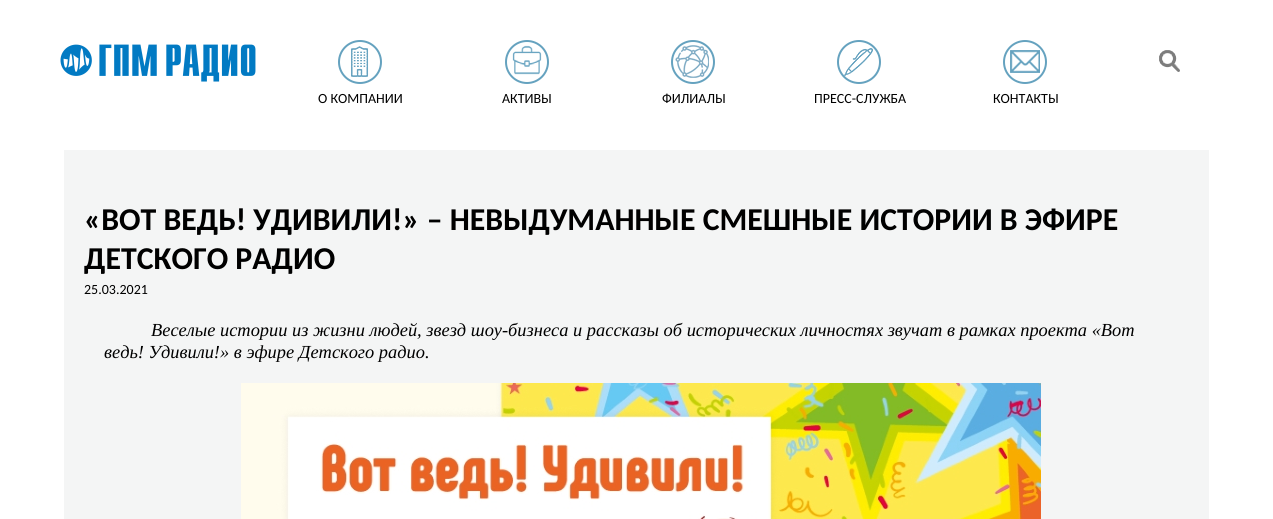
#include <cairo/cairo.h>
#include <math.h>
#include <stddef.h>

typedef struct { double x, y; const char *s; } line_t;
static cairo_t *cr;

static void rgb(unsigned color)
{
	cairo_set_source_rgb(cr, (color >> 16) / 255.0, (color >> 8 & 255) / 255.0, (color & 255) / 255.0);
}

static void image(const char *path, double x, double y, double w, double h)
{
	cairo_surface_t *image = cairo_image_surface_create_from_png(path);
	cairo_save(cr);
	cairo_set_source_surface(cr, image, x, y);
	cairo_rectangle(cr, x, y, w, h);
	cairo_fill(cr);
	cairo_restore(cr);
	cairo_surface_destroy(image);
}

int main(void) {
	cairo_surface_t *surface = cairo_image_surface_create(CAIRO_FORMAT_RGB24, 1273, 519);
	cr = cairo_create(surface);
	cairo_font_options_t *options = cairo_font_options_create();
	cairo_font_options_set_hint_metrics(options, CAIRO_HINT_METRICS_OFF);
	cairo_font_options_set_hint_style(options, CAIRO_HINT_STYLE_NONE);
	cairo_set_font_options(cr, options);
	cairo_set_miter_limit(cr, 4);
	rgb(0xffffff);
	cairo_paint(cr);
	image("img/1.png", 60, 44, 196, 38);
	image("img/2.png", 1159, 50, 21, 22);
	image("img/3.png", 351, 46, 18, 31);
	cairo_arc(cr, 360, 62, 21, 0, 2 * M_PI);
	rgb(0x65a2bf);
	cairo_stroke(cr);
	image("img/4.png", 512, 45, 30, 30);
	cairo_arc(cr, 527, 62, 21, 0, 2 * M_PI);
	cairo_stroke(cr);
	image("img/5.png", 675, 45, 34, 33);
	cairo_arc(cr, 693, 62, 21, 0, 2 * M_PI);
	cairo_stroke(cr);
	image("img/6.png", 844, 48, 29, 28);
	cairo_arc(cr, 859, 62, 21, 0, 2 * M_PI);
	cairo_stroke(cr);
	image("img/7.png", 1010, 50, 30, 23);
	cairo_arc(cr, 1025, 62, 21, 0, 2 * M_PI);
	cairo_stroke(cr);
	rgb(0xf4f5f5);
	cairo_rectangle(cr, 64, 150, 1145, 369);
	cairo_fill(cr);
	image("img/8.png", 241, 383, 800, 136);
	cairo_select_font_face(cr, "Carlito", CAIRO_FONT_SLANT_NORMAL, CAIRO_FONT_WEIGHT_NORMAL);
	cairo_set_font_size(cr, 14);
	rgb(0x000000);
	{
		static const line_t items[] = {
			{318, 103, "О КОМПАНИИ"},
			{502, 103, "АКТИВЫ"},
			{662, 103, "ФИЛИАЛЫ"},
			{814, 103, "ПРЕСС-СЛУЖБА"},
			{993, 103, "КОНТАКТЫ"},
		};
		for (size_t i = 0; i < sizeof items / sizeof *items; i++) {
			cairo_move_to(cr, items[i].x, items[i].y);
			cairo_show_text(cr, items[i].s);
		}
	}
	cairo_select_font_face(cr, "Carlito", CAIRO_FONT_SLANT_NORMAL, CAIRO_FONT_WEIGHT_BOLD);
	cairo_set_font_size(cr, 31.8);
	cairo_move_to(cr, 84, 230);
	cairo_show_text(cr, "«ВОТ ВЕДЬ! УДИВИЛИ!» – НЕВЫДУМАННЫЕ СМЕШНЫЕ ИСТОРИИ В ЭФИРЕ");
	cairo_move_to(cr, 84, 269);
	cairo_show_text(cr, "ДЕТСКОГО РАДИО");
	cairo_select_font_face(cr, "Carlito", CAIRO_FONT_SLANT_NORMAL, CAIRO_FONT_WEIGHT_NORMAL);
	cairo_set_font_size(cr, 14);
	cairo_move_to(cr, 84, 294);
	cairo_show_text(cr, "25.03.2021");
	cairo_select_font_face(cr, "Liberation Serif", CAIRO_FONT_SLANT_ITALIC, CAIRO_FONT_WEIGHT_NORMAL);
	cairo_set_font_size(cr, 18.4);
	cairo_move_to(cr, 151, 336);
	cairo_show_text(cr, "Веселые истории из жизни людей, звезд шоу-бизнеса и рассказы об исторических личностях звучат в рамках проекта «Вот");
	cairo_move_to(cr, 104, 358);
	cairo_show_text(cr, "ведь! Удивили!» в эфире Детского радио.");
	cairo_surface_write_to_png(surface, "page.png");
	cairo_font_options_destroy(options);
	cairo_destroy(cr);
	cairo_surface_destroy(surface);
	return 0;
}
